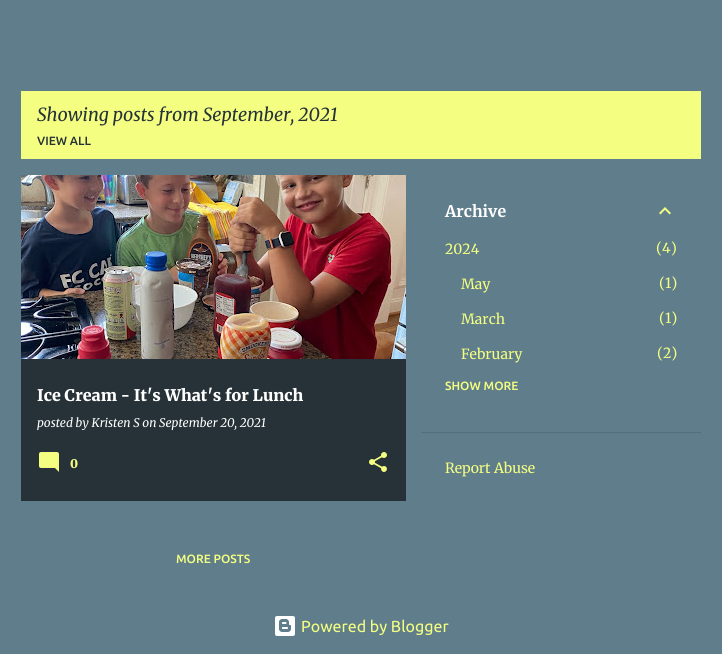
#include <cairo/cairo.h>
#include <math.h>
#include <stddef.h>

typedef struct { double x, y; const char *s; } line_t;
static cairo_t *cr;

static void rgb(unsigned color)
{
	cairo_set_source_rgb(cr, (color >> 16) / 255.0, (color >> 8 & 255) / 255.0, (color & 255) / 255.0);
}

static void image(const char *path, double x, double y, double w, double h)
{
	cairo_surface_t *image = cairo_image_surface_create_from_png(path);
	cairo_save(cr);
	cairo_set_source_surface(cr, image, x, y);
	cairo_rectangle(cr, x, y, w, h);
	cairo_fill(cr);
	cairo_restore(cr);
	cairo_surface_destroy(image);
}

int main(void) {
	cairo_surface_t *surface = cairo_image_surface_create(CAIRO_FORMAT_RGB24, 722, 654);
	cr = cairo_create(surface);
	cairo_font_options_t *options = cairo_font_options_create();
	cairo_font_options_set_hint_metrics(options, CAIRO_HINT_METRICS_OFF);
	cairo_font_options_set_hint_style(options, CAIRO_HINT_STYLE_NONE);
	cairo_set_font_options(cr, options);
	cairo_set_miter_limit(cr, 4);
	rgb(0x607d8b);
	cairo_paint(cr);
	rgb(0xf4ff81);
	cairo_rectangle(cr, 21, 91, 680, 68);
	cairo_fill(cr);
	rgb(0x263238);
	cairo_rectangle(cr, 21, 359, 385, 142);
	cairo_fill(cr);
	image("img/1.png", 21, 175, 385, 184);
	image("img/2.png", 39, 452, 20, 20);
	image("img/3.png", 369, 452, 18, 20);
	image("img/4.png", 659, 207, 12, 8);
	rgb(0x546e7a);
	cairo_rectangle(cr, 421, 432, 280, 1);
	cairo_fill(cr);
	image("img/5.png", 275, 616, 20, 20);
	cairo_select_font_face(cr, "Merriweather", CAIRO_FONT_SLANT_ITALIC, CAIRO_FONT_WEIGHT_NORMAL);
	cairo_set_font_size(cr, 18);
	rgb(0x263238);
	cairo_move_to(cr, 37, 121);
	cairo_show_text(cr, "Showing posts from September, 2021");
	cairo_select_font_face(cr, "Ubuntu Medium", CAIRO_FONT_SLANT_NORMAL, CAIRO_FONT_WEIGHT_NORMAL);
	cairo_set_font_size(cr, 12);
	cairo_move_to(cr, 37, 145);
	cairo_show_text(cr, "VIEW ALL");
	cairo_select_font_face(cr, "Merriweather Black", CAIRO_FONT_SLANT_NORMAL, CAIRO_FONT_WEIGHT_NORMAL);
	cairo_set_font_size(cr, 16);
	rgb(0xffffff);
	cairo_move_to(cr, 37, 401);
	cairo_show_text(cr, "Ice Cream - It's What's for Lunch");
	cairo_select_font_face(cr, "Merriweather", CAIRO_FONT_SLANT_ITALIC, CAIRO_FONT_WEIGHT_NORMAL);
	cairo_set_font_size(cr, 12);
	cairo_move_to(cr, 37, 427);
	cairo_show_text(cr, "posted by Kristen S on September 20, 2021");
	cairo_select_font_face(cr, "Merriweather Black", CAIRO_FONT_SLANT_NORMAL, CAIRO_FONT_WEIGHT_NORMAL);
	rgb(0xf4ff81);
	cairo_move_to(cr, 70, 468);
	cairo_show_text(cr, "0");
	cairo_select_font_face(cr, "Ubuntu Medium", CAIRO_FONT_SLANT_NORMAL, CAIRO_FONT_WEIGHT_NORMAL);
	cairo_move_to(cr, 176, 563);
	cairo_show_text(cr, "MORE POSTS");
	cairo_select_font_face(cr, "Merriweather", CAIRO_FONT_SLANT_NORMAL, CAIRO_FONT_WEIGHT_BOLD);
	cairo_set_font_size(cr, 16);
	rgb(0xffffff);
	cairo_move_to(cr, 445, 217);
	cairo_show_text(cr, "Archive");
	cairo_select_font_face(cr, "Merriweather", CAIRO_FONT_SLANT_NORMAL, CAIRO_FONT_WEIGHT_NORMAL);
	cairo_set_font_size(cr, 14);
	rgb(0xf4ff81);
	{
		static const line_t items[] = {
			{445, 254, "2024"},
			{656, 253, "(4)"},
			{461, 289, "May"},
			{659, 288, "(1)"},
			{461, 324, "March"},
			{659, 323, "(1)"},
			{461, 359, "February"},
			{657, 358, "(2)"},
		};
		for (size_t i = 0; i < sizeof items / sizeof *items; i++) {
			cairo_move_to(cr, items[i].x, items[i].y);
			cairo_show_text(cr, items[i].s);
		}
	}
	cairo_select_font_face(cr, "Ubuntu Medium", CAIRO_FONT_SLANT_NORMAL, CAIRO_FONT_WEIGHT_NORMAL);
	cairo_set_font_size(cr, 12);
	cairo_move_to(cr, 445, 390);
	cairo_show_text(cr, "SHOW MORE");
	cairo_select_font_face(cr, "Merriweather", CAIRO_FONT_SLANT_NORMAL, CAIRO_FONT_WEIGHT_NORMAL);
	cairo_set_font_size(cr, 14);
	cairo_move_to(cr, 445, 473);
	cairo_show_text(cr, "Report Abuse");
	cairo_select_font_face(cr, "Ubuntu", CAIRO_FONT_SLANT_NORMAL, CAIRO_FONT_WEIGHT_NORMAL);
	cairo_set_font_size(cr, 16);
	cairo_move_to(cr, 301, 632);
	cairo_show_text(cr, "Powered by Blogger");
	cairo_surface_write_to_png(surface, "page.png");
	cairo_font_options_destroy(options);
	cairo_destroy(cr);
	cairo_surface_destroy(surface);
	return 0;
}
